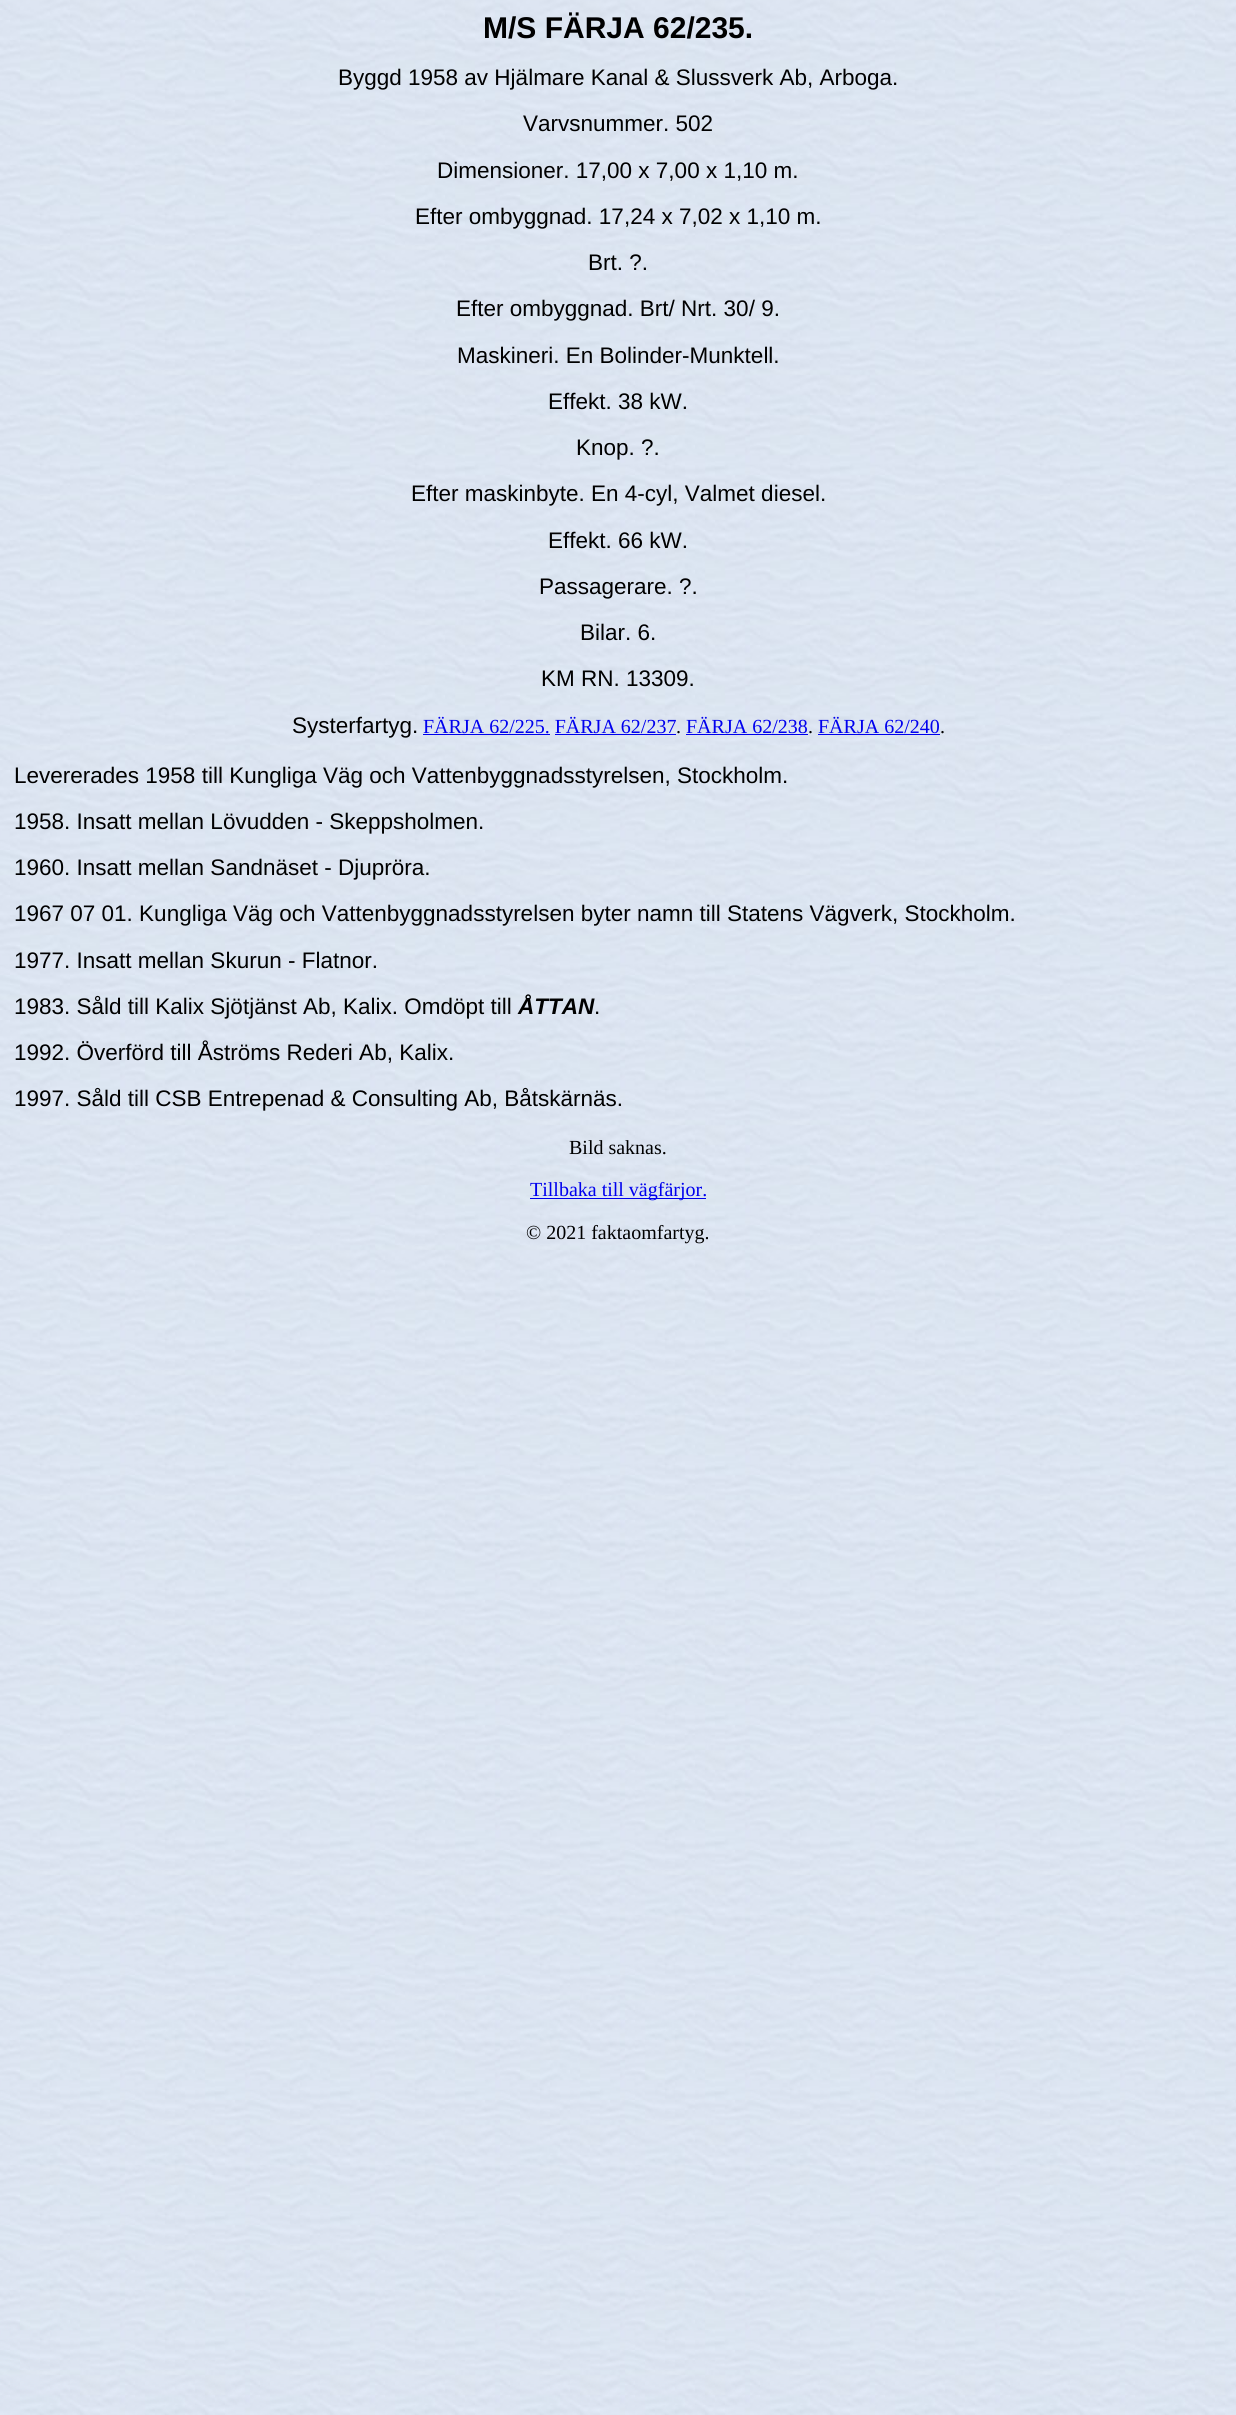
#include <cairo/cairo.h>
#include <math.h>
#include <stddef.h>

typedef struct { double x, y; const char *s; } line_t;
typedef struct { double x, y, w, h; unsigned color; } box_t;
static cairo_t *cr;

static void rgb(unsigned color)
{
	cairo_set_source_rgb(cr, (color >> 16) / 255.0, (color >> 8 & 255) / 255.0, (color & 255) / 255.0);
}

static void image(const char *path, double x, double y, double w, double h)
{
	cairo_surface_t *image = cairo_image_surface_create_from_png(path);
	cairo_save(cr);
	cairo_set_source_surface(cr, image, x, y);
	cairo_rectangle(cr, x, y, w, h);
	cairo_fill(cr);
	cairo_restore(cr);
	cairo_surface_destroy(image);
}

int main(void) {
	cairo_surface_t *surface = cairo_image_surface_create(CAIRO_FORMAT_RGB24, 1236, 2415);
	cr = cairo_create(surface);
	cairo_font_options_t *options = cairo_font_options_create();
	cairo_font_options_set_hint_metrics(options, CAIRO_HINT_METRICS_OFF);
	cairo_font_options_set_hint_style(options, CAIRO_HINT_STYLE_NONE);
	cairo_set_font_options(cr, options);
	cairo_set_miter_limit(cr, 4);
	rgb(0xffffff);
	cairo_paint(cr);
	image("img/1.png", 0, 0, 1236, 2415);
	{
		static const box_t items[] = {
			{423, 734, 127, 1, 0x0000ee},
			{686, 734, 122, 1, 0x0000ee},
			{818, 734, 122, 1, 0x0000ee},
			{555, 734, 121, 1, 0x0000ee},
			{530, 1198, 176, 1, 0x0000ee},
		};
		for (size_t i = 0; i < sizeof items / sizeof *items; i++) {
			rgb(items[i].color);
			cairo_rectangle(cr, items[i].x, items[i].y, items[i].w, items[i].h);
			cairo_fill(cr);
		}
	}
	cairo_select_font_face(cr, "Liberation Sans", CAIRO_FONT_SLANT_NORMAL, CAIRO_FONT_WEIGHT_BOLD);
	cairo_set_font_size(cr, 30);
	rgb(0x000000);
	cairo_move_to(cr, 483, 38);
	cairo_show_text(cr, "M/S FÄRJA 62/235.");
	cairo_select_font_face(cr, "Liberation Sans", CAIRO_FONT_SLANT_NORMAL, CAIRO_FONT_WEIGHT_NORMAL);
	cairo_set_font_size(cr, 22.5);
	{
		static const line_t items[] = {
			{338, 85, "Byggd 1958 av Hjälmare Kanal & Slussverk Ab, Arboga."},
			{523, 131, "Varvsnummer. 502"},
			{437, 178, "Dimensioner. 17,00 x 7,00 x 1,10 m."},
			{415, 224, "Efter ombyggnad. 17,24 x 7,02 x 1,10 m."},
			{588, 270, "Brt. ?."},
			{456, 316, "Efter ombyggnad. Brt/ Nrt. 30/ 9."},
			{457, 363, "Maskineri. En Bolinder-Munktell."},
			{548, 409, "Effekt. 38 kW."},
			{576, 455, "Knop. ?."},
			{411, 501, "Efter maskinbyte. En 4-cyl, Valmet diesel."},
			{548, 548, "Effekt. 66 kW."},
			{539, 594, "Passagerare. ?."},
			{580, 640, "Bilar. 6."},
			{541, 686, "KM RN. 13309."},
			{292, 733, "Systerfartyg."},
		};
		for (size_t i = 0; i < sizeof items / sizeof *items; i++) {
			cairo_move_to(cr, items[i].x, items[i].y);
			cairo_show_text(cr, items[i].s);
		}
	}
	cairo_select_font_face(cr, "Liberation Serif", CAIRO_FONT_SLANT_NORMAL, CAIRO_FONT_WEIGHT_NORMAL);
	cairo_set_font_size(cr, 20);
	rgb(0x0000ee);
	cairo_move_to(cr, 423, 733);
	cairo_show_text(cr, "FÄRJA 62/225. FÄRJA 62/237");
	rgb(0x000000);
	cairo_move_to(cr, 676, 733);
	cairo_show_text(cr, ".");
	rgb(0x0000ee);
	cairo_move_to(cr, 686, 733);
	cairo_show_text(cr, "FÄRJA 62/238");
	rgb(0x000000);
	cairo_move_to(cr, 808, 733);
	cairo_show_text(cr, ".");
	rgb(0x0000ee);
	cairo_move_to(cr, 818, 733);
	cairo_show_text(cr, "FÄRJA 62/240");
	rgb(0x000000);
	cairo_move_to(cr, 940, 733);
	cairo_show_text(cr, ".");
	cairo_select_font_face(cr, "Liberation Sans", CAIRO_FONT_SLANT_NORMAL, CAIRO_FONT_WEIGHT_NORMAL);
	cairo_set_font_size(cr, 22.5);
	{
		static const line_t items[] = {
			{14, 783, "Levererades 1958 till Kungliga Väg och Vattenbyggnadsstyrelsen, Stockholm."},
			{14, 829, "1958. Insatt mellan Lövudden - Skeppsholmen."},
			{14, 875, "1960. Insatt mellan Sandnäset - Djupröra."},
			{14, 921, "1967 07 01. Kungliga Väg och Vattenbyggnadsstyrelsen byter namn till Statens Vägverk, Stockholm."},
			{14, 968, "1977. Insatt mellan Skurun - Flatnor."},
			{14, 1014, "1983. Såld till Kalix Sjötjänst Ab, Kalix. Omdöpt till"},
		};
		for (size_t i = 0; i < sizeof items / sizeof *items; i++) {
			cairo_move_to(cr, items[i].x, items[i].y);
			cairo_show_text(cr, items[i].s);
		}
	}
	cairo_select_font_face(cr, "Liberation Sans", CAIRO_FONT_SLANT_ITALIC, CAIRO_FONT_WEIGHT_BOLD);
	cairo_move_to(cr, 518, 1014);
	cairo_show_text(cr, "ÅTTAN");
	cairo_select_font_face(cr, "Liberation Sans", CAIRO_FONT_SLANT_NORMAL, CAIRO_FONT_WEIGHT_NORMAL);
	{
		static const line_t items[] = {
			{594, 1014, "."},
			{14, 1060, "1992. Överförd till Åströms Rederi Ab, Kalix."},
			{14, 1106, "1997. Såld till CSB Entrepenad & Consulting Ab, Båtskärnäs."},
		};
		for (size_t i = 0; i < sizeof items / sizeof *items; i++) {
			cairo_move_to(cr, items[i].x, items[i].y);
			cairo_show_text(cr, items[i].s);
		}
	}
	cairo_select_font_face(cr, "Liberation Serif", CAIRO_FONT_SLANT_NORMAL, CAIRO_FONT_WEIGHT_NORMAL);
	cairo_set_font_size(cr, 20);
	cairo_move_to(cr, 569, 1154);
	cairo_show_text(cr, "Bild saknas.");
	rgb(0x0000ee);
	cairo_move_to(cr, 530, 1196);
	cairo_show_text(cr, "Tillbaka till vägfärjor.");
	rgb(0x000000);
	cairo_move_to(cr, 526, 1239);
	cairo_show_text(cr, "© 2021 faktaomfartyg.");
	cairo_surface_write_to_png(surface, "page.png");
	cairo_font_options_destroy(options);
	cairo_destroy(cr);
	cairo_surface_destroy(surface);
	return 0;
}
